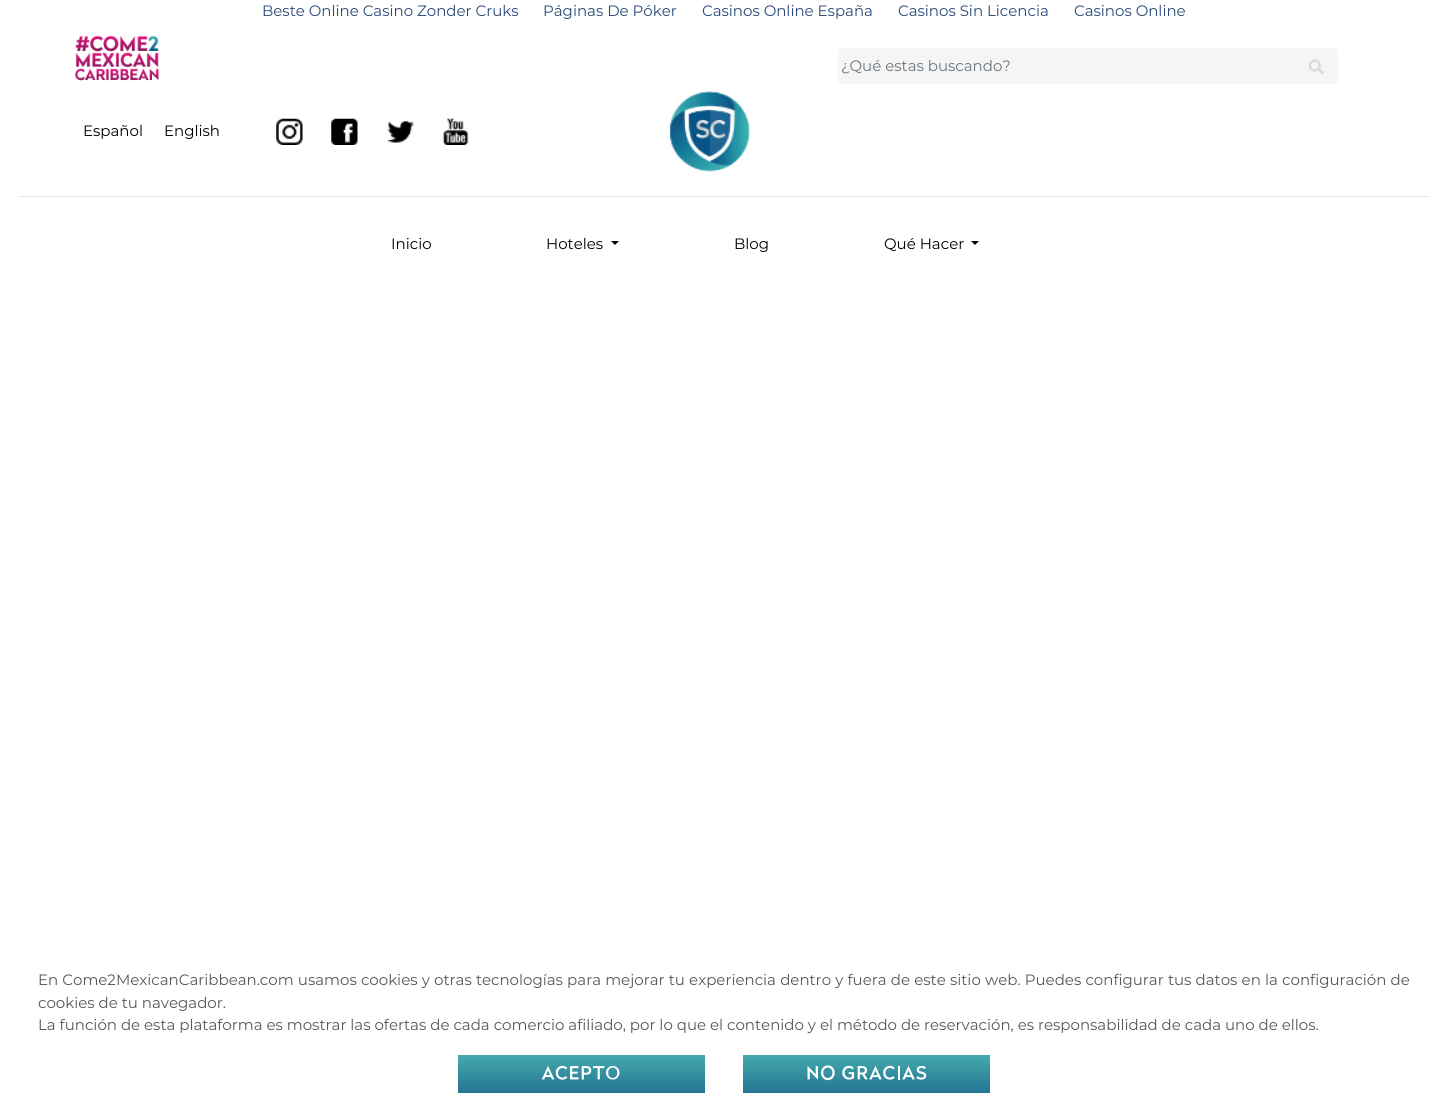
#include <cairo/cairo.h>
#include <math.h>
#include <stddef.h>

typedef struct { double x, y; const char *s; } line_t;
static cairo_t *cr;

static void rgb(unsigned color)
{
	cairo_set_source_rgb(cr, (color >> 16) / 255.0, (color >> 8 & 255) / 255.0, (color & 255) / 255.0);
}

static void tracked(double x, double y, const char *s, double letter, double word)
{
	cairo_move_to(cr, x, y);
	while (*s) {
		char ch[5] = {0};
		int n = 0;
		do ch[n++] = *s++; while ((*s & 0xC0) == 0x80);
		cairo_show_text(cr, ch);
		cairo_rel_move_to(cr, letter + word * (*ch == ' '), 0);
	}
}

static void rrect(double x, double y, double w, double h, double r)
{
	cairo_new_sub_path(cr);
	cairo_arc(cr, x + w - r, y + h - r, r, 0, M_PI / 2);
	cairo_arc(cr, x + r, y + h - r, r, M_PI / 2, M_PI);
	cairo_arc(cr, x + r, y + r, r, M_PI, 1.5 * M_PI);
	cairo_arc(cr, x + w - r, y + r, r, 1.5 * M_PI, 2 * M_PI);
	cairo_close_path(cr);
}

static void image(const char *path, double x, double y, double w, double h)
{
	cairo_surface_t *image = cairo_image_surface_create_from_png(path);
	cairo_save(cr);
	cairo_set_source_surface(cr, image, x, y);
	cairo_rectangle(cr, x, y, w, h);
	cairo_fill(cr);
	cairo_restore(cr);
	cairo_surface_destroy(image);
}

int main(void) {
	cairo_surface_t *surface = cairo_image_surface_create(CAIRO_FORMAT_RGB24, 1447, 1096);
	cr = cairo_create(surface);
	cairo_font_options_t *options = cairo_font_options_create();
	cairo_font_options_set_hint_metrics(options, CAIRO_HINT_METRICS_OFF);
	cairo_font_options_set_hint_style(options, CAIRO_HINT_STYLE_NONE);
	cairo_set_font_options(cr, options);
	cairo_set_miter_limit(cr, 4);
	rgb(0xffffff);
	cairo_paint(cr);
	image("img/1.png", 75, 35, 84, 46);
	rgb(0xf5f5f5);
	rrect(838, 48, 500, 36, 4);
	cairo_fill(cr);
	image("img/2.png", 1308, 59, 16, 16);
	image("img/3.png", 276, 118, 27, 27);
	image("img/4.png", 331, 118, 27, 27);
	image("img/5.png", 387, 121, 27, 22);
	image("img/6.png", 442, 118, 27, 27);
	image("img/7.png", 669, 91, 82, 81);
	rgb(0xe6e6e6);
	cairo_rectangle(cr, 19, 196, 1410, 1);
	cairo_fill(cr);
	rgb(0x000000);
	cairo_new_path(cr);
	cairo_move_to(cr, 611, 241);
	cairo_line_to(cr, 619, 241);
	cairo_line_to(cr, 615, 245);
	cairo_close_path(cr);
	cairo_fill(cr);
	cairo_new_path(cr);
	cairo_move_to(cr, 971, 241);
	cairo_line_to(cr, 979, 241);
	cairo_line_to(cr, 975, 245);
	cairo_close_path(cr);
	cairo_fill(cr);
	image("img/8.png", 458, 1055, 247, 38);
	image("img/9.png", 743, 1055, 247, 38);
	cairo_select_font_face(cr, "Montserrat", CAIRO_FONT_SLANT_NORMAL, CAIRO_FONT_WEIGHT_NORMAL);
	cairo_set_font_size(cr, 15);
	rgb(0x2b4a78);
	{
		static const line_t items[] = {
			{262, 16, "Beste Online Casino Zonder Cruks"},
			{543, 16, "Páginas De Póker"},
			{702, 16, "Casinos Online España"},
			{898, 16, "Casinos Sin Licencia"},
			{1074, 16, "Casinos Online"},
		};
		for (size_t i = 0; i < sizeof items / sizeof *items; i++) {
			cairo_move_to(cr, items[i].x, items[i].y);
			cairo_show_text(cr, items[i].s);
		}
	}
	rgb(0x6c757d);
	cairo_move_to(cr, 841, 71);
	cairo_show_text(cr, "¿Qué estas buscando?");
	rgb(0x000000);
	{
		static const line_t items[] = {
			{83, 136, "Español"},
			{164, 136, "English"},
			{391, 249, "Inicio"},
			{546, 249, "Hoteles"},
			{734, 249, "Blog"},
			{884, 249, "Qué Hacer"},
		};
		for (size_t i = 0; i < sizeof items / sizeof *items; i++) {
			cairo_move_to(cr, items[i].x, items[i].y);
			cairo_show_text(cr, items[i].s);
		}
	}
	rgb(0x575757);
	tracked(38, 985, "En Come2MexicanCaribbean.com usamos cookies y otras tecnologías para mejorar tu experiencia dentro y fuera de este sitio web. Puedes configurar tus datos en la configuración de", 0, 0.25);
	cairo_move_to(cr, 38, 1008);
	cairo_show_text(cr, "cookies de tu navegador.");
	cairo_move_to(cr, 38, 1030);
	cairo_show_text(cr, "La función de esta plataforma es mostrar las ofertas de cada comercio afiliado, por lo que el contenido y el método de reservación, es responsabilidad de cada uno de ellos.");
	cairo_surface_write_to_png(surface, "page.png");
	cairo_font_options_destroy(options);
	cairo_destroy(cr);
	cairo_surface_destroy(surface);
	return 0;
}
